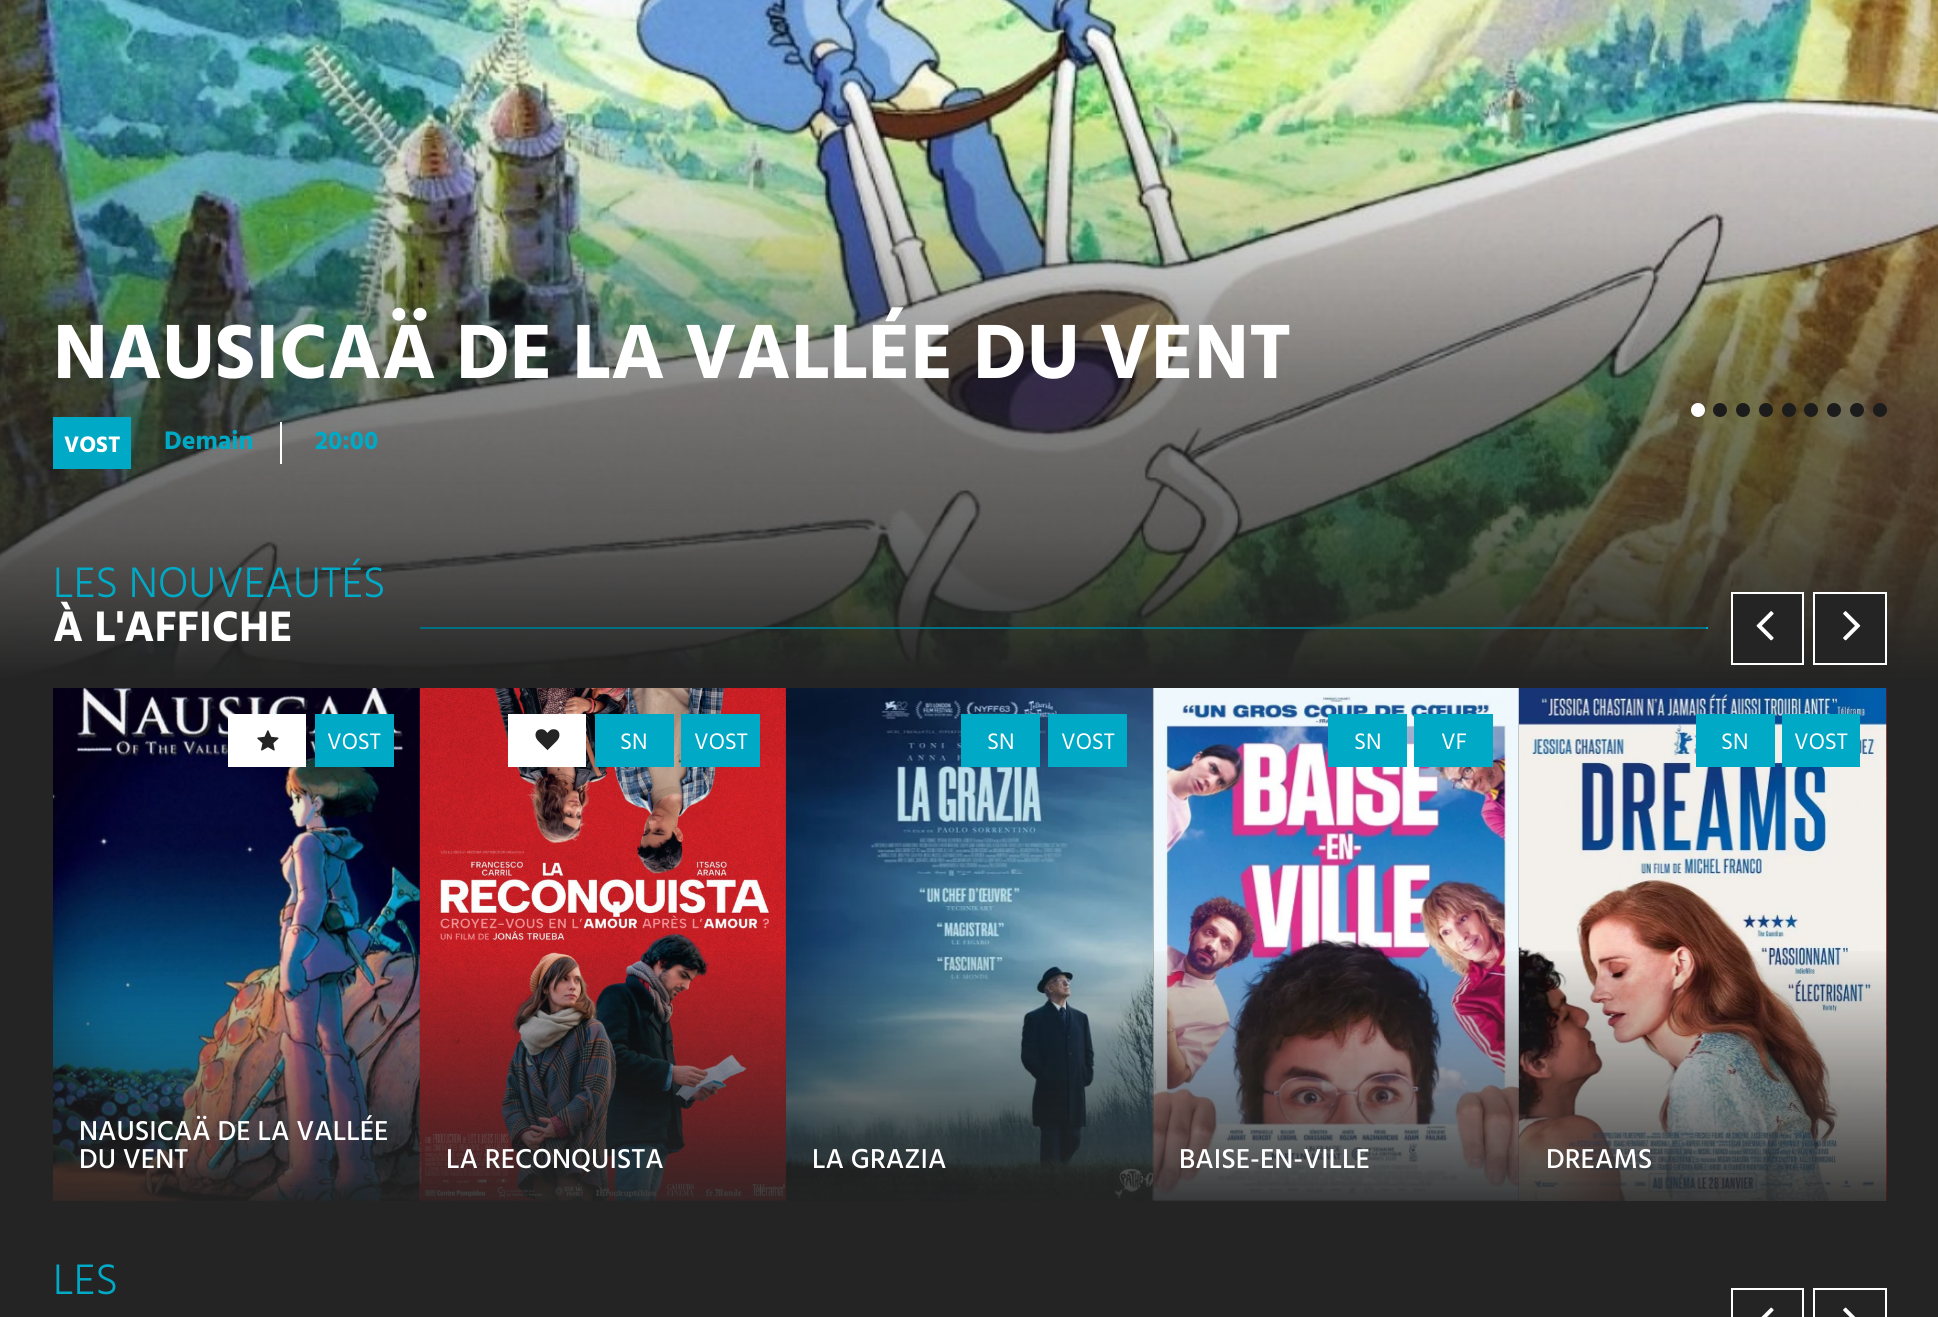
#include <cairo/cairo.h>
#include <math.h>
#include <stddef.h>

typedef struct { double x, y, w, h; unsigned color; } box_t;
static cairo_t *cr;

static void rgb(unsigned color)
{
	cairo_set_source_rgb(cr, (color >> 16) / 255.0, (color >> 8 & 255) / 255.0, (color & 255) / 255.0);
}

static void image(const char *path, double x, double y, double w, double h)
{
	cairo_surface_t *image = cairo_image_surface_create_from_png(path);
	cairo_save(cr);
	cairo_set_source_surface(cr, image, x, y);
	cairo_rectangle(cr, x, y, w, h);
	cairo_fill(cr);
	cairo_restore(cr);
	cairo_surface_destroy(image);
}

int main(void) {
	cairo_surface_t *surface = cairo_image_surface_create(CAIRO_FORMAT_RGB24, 1938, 1317);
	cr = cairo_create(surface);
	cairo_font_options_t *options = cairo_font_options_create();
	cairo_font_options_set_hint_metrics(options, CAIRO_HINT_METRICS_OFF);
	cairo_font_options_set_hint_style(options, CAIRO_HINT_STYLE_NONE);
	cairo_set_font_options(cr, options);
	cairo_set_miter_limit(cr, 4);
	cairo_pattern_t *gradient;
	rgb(0x242424);
	cairo_paint(cr);
	image("img/1.png", 0, 0, 1938, 679);
	rgb(0x00a9c5);
	cairo_rectangle(cr, 53, 417, 78, 52);
	cairo_fill(cr);
	rgb(0xffffff);
	cairo_rectangle(cr, 280, 422, 2, 42);
	cairo_fill(cr);
	cairo_arc(cr, 1698, 410, 7, 0, 2 * M_PI);
	cairo_fill(cr);
	rgb(0x1c1c1c);
	cairo_arc(cr, 1720, 410, 7, 0, 2 * M_PI);
	cairo_fill(cr);
	cairo_arc(cr, 1743, 410, 7, 0, 2 * M_PI);
	cairo_fill(cr);
	cairo_arc(cr, 1766, 410, 7, 0, 2 * M_PI);
	cairo_fill(cr);
	cairo_arc(cr, 1789, 410, 7, 0, 2 * M_PI);
	cairo_fill(cr);
	cairo_arc(cr, 1811, 410, 7, 0, 2 * M_PI);
	cairo_fill(cr);
	cairo_arc(cr, 1834, 410, 7, 0, 2 * M_PI);
	cairo_fill(cr);
	cairo_arc(cr, 1857, 410, 7, 0, 2 * M_PI);
	cairo_fill(cr);
	cairo_arc(cr, 1880, 410, 7, 0, 2 * M_PI);
	cairo_fill(cr);
	rgb(0x007183);
	cairo_rectangle(cr, 420, 627, 1288, 2);
	cairo_fill(cr);
	rgb(0x00a9c5);
	cairo_rectangle(cr, 1706, 627, 2, 2);
	cairo_fill(cr);
	rgb(0x242424);
	cairo_rectangle(cr, 1732, 593, 71, 71);
	cairo_fill_preserve(cr);
	rgb(0xffffff);
	cairo_stroke(cr);
	image("img/2.png", 1756, 611, 18, 30);
	rgb(0x242424);
	cairo_rectangle(cr, 1814, 593, 72, 71);
	cairo_fill_preserve(cr);
	rgb(0xffffff);
	cairo_stroke(cr);
	image("img/3.png", 1843, 611, 18, 30);
	image("img/4.png", 53, 688, 367, 513);
	gradient = cairo_pattern_create_linear(236, 1201, 236, 688);
	cairo_pattern_add_color_stop_rgba(gradient, 0, 0.141, 0.141, 0.141, 0.9);
	cairo_pattern_add_color_stop_rgba(gradient, 0.5, 0.141, 0.141, 0.141, 0);
	cairo_pattern_add_color_stop_rgba(gradient, 1, 0.141, 0.141, 0.141, 0);
	cairo_set_source(cr, gradient);
	cairo_pattern_destroy(gradient);
	cairo_rectangle(cr, 53, 951, 367, 250);
	cairo_fill(cr);
	rgb(0xffffff);
	cairo_rectangle(cr, 228, 714, 78, 53);
	cairo_fill(cr);
	image("img/5.png", 257, 730, 22, 21);
	rgb(0x00a9c5);
	cairo_rectangle(cr, 315, 714, 79, 53);
	cairo_fill(cr);
	rgb(0x1a1a1a);
	cairo_rectangle(cr, 420, 688, 366, 513);
	cairo_fill(cr);
	image("img/6.png", 419, 688, 367, 513);
	gradient = cairo_pattern_create_linear(603, 1201, 603, 688);
	cairo_pattern_add_color_stop_rgba(gradient, 0, 0.141, 0.141, 0.141, 0.9);
	cairo_pattern_add_color_stop_rgba(gradient, 0.5, 0.141, 0.141, 0.141, 0);
	cairo_pattern_add_color_stop_rgba(gradient, 1, 0.141, 0.141, 0.141, 0);
	cairo_set_source(cr, gradient);
	cairo_pattern_destroy(gradient);
	cairo_rectangle(cr, 420, 951, 366, 250);
	cairo_fill(cr);
	rgb(0xffffff);
	cairo_rectangle(cr, 508, 714, 78, 53);
	cairo_fill(cr);
	image("img/7.png", 535, 729, 25, 22);
	rgb(0x00a9c5);
	cairo_rectangle(cr, 595, 714, 79, 53);
	cairo_fill(cr);
	cairo_rectangle(cr, 681, 714, 79, 53);
	cairo_fill(cr);
	image("img/8.png", 786, 688, 367, 513);
	{
		static const box_t items[] = {
			{961, 714, 79, 53, 0x00a9c5},
			{1048, 714, 79, 53, 0x00a9c5},
			{1153, 688, 366, 513, 0x1a1a1a},
		};
		for (size_t i = 0; i < sizeof items / sizeof *items; i++) {
			rgb(items[i].color);
			cairo_rectangle(cr, items[i].x, items[i].y, items[i].w, items[i].h);
			cairo_fill(cr);
		}
	}
	image("img/9.png", 1152, 688, 367, 513);
	gradient = cairo_pattern_create_linear(1336, 1201, 1336, 688);
	cairo_pattern_add_color_stop_rgba(gradient, 0, 0.141, 0.141, 0.141, 0.9);
	cairo_pattern_add_color_stop_rgba(gradient, 0.5, 0.141, 0.141, 0.141, 0);
	cairo_pattern_add_color_stop_rgba(gradient, 1, 0.141, 0.141, 0.141, 0);
	cairo_set_source(cr, gradient);
	cairo_pattern_destroy(gradient);
	cairo_rectangle(cr, 1153, 951, 366, 250);
	cairo_fill(cr);
	{
		static const box_t items[] = {
			{1328, 714, 79, 53, 0x00a9c5},
			{1414, 714, 79, 53, 0x00a9c5},
			{1886, 688, 1, 513, 0x1a1a1a},
		};
		for (size_t i = 0; i < sizeof items / sizeof *items; i++) {
			rgb(items[i].color);
			cairo_rectangle(cr, items[i].x, items[i].y, items[i].w, items[i].h);
			cairo_fill(cr);
		}
	}
	image("img/10.png", 1519, 688, 368, 513);
	gradient = cairo_pattern_create_linear(1703, 1201, 1703, 688);
	cairo_pattern_add_color_stop_rgba(gradient, 0, 0.141, 0.141, 0.141, 0.9);
	cairo_pattern_add_color_stop_rgba(gradient, 0.5, 0.141, 0.141, 0.141, 0);
	cairo_pattern_add_color_stop_rgba(gradient, 1, 0.141, 0.141, 0.141, 0);
	cairo_set_source(cr, gradient);
	cairo_pattern_destroy(gradient);
	cairo_rectangle(cr, 1519, 951, 368, 250);
	cairo_fill(cr);
	rgb(0x00a9c5);
	cairo_rectangle(cr, 1696, 714, 79, 53);
	cairo_fill(cr);
	cairo_rectangle(cr, 1782, 714, 78, 53);
	cairo_fill(cr);
	image("img/11.png", 1886, 688, 1, 513);
	cairo_rectangle(cr, 1732, 1289, 71, 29);
	rgb(0xffffff);
	cairo_stroke(cr);
	image("img/12.png", 1761, 1307, 13, 10);
	cairo_rectangle(cr, 1814, 1289, 72, 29);
	cairo_stroke(cr);
	image("img/13.png", 1843, 1307, 13, 10);
	cairo_select_font_face(cr, "Hind", CAIRO_FONT_SLANT_NORMAL, CAIRO_FONT_WEIGHT_BOLD);
	cairo_set_font_size(cr, 78.75);
	cairo_move_to(cr, 53, 378);
	cairo_show_text(cr, "NAUSICAÄ DE LA VALLÉE DU VENT");
	cairo_set_font_size(cr, 23);
	cairo_move_to(cr, 64, 452);
	cairo_show_text(cr, "VOST");
	cairo_set_font_size(cr, 26);
	rgb(0x00a9c5);
	cairo_move_to(cr, 164, 449);
	cairo_show_text(cr, "Demain");
	cairo_move_to(cr, 315, 449);
	cairo_show_text(cr, "20:00");
	cairo_select_font_face(cr, "Hind Light", CAIRO_FONT_SLANT_NORMAL, CAIRO_FONT_WEIGHT_NORMAL);
	cairo_set_font_size(cr, 43.75);
	cairo_move_to(cr, 53, 597);
	cairo_show_text(cr, "LES NOUVEAUTÉS");
	cairo_select_font_face(cr, "Hind", CAIRO_FONT_SLANT_NORMAL, CAIRO_FONT_WEIGHT_BOLD);
	rgb(0xffffff);
	cairo_move_to(cr, 53, 641);
	cairo_show_text(cr, "À L'AFFICHE");
	cairo_select_font_face(cr, "Hind", CAIRO_FONT_SLANT_NORMAL, CAIRO_FONT_WEIGHT_NORMAL);
	cairo_set_font_size(cr, 23);
	cairo_move_to(cr, 327, 749);
	cairo_show_text(cr, "VOST");
	cairo_select_font_face(cr, "Hind Medium", CAIRO_FONT_SLANT_NORMAL, CAIRO_FONT_WEIGHT_NORMAL);
	cairo_set_font_size(cr, 28);
	cairo_move_to(cr, 79, 1140);
	cairo_show_text(cr, "NAUSICAÄ DE LA VALLÉE");
	cairo_move_to(cr, 79, 1168);
	cairo_show_text(cr, "DU VENT");
	cairo_select_font_face(cr, "Hind", CAIRO_FONT_SLANT_NORMAL, CAIRO_FONT_WEIGHT_NORMAL);
	cairo_set_font_size(cr, 23);
	cairo_move_to(cr, 620, 749);
	cairo_show_text(cr, "SN");
	cairo_move_to(cr, 694, 749);
	cairo_show_text(cr, "VOST");
	cairo_select_font_face(cr, "Hind Medium", CAIRO_FONT_SLANT_NORMAL, CAIRO_FONT_WEIGHT_NORMAL);
	cairo_set_font_size(cr, 28);
	cairo_move_to(cr, 446, 1168);
	cairo_show_text(cr, "LA RECONQUISTA");
	cairo_select_font_face(cr, "Hind", CAIRO_FONT_SLANT_NORMAL, CAIRO_FONT_WEIGHT_NORMAL);
	cairo_set_font_size(cr, 23);
	cairo_move_to(cr, 987, 749);
	cairo_show_text(cr, "SN");
	cairo_move_to(cr, 1061, 749);
	cairo_show_text(cr, "VOST");
	cairo_select_font_face(cr, "Hind Medium", CAIRO_FONT_SLANT_NORMAL, CAIRO_FONT_WEIGHT_NORMAL);
	cairo_set_font_size(cr, 28);
	cairo_move_to(cr, 812, 1168);
	cairo_show_text(cr, "LA GRAZIA");
	cairo_select_font_face(cr, "Hind", CAIRO_FONT_SLANT_NORMAL, CAIRO_FONT_WEIGHT_NORMAL);
	cairo_set_font_size(cr, 23);
	cairo_move_to(cr, 1354, 749);
	cairo_show_text(cr, "SN");
	cairo_move_to(cr, 1441, 749);
	cairo_show_text(cr, "VF");
	cairo_select_font_face(cr, "Hind Medium", CAIRO_FONT_SLANT_NORMAL, CAIRO_FONT_WEIGHT_NORMAL);
	cairo_set_font_size(cr, 28);
	cairo_move_to(cr, 1179, 1168);
	cairo_show_text(cr, "BAISE-EN-VILLE");
	cairo_select_font_face(cr, "Hind", CAIRO_FONT_SLANT_NORMAL, CAIRO_FONT_WEIGHT_NORMAL);
	cairo_set_font_size(cr, 23);
	cairo_move_to(cr, 1721, 749);
	cairo_show_text(cr, "SN");
	cairo_move_to(cr, 1794, 749);
	cairo_show_text(cr, "VOST");
	cairo_select_font_face(cr, "Hind Medium", CAIRO_FONT_SLANT_NORMAL, CAIRO_FONT_WEIGHT_NORMAL);
	cairo_set_font_size(cr, 28);
	cairo_move_to(cr, 1546, 1168);
	cairo_show_text(cr, "DREAMS");
	cairo_select_font_face(cr, "Hind Light", CAIRO_FONT_SLANT_NORMAL, CAIRO_FONT_WEIGHT_NORMAL);
	cairo_set_font_size(cr, 43.75);
	rgb(0x00a9c5);
	cairo_move_to(cr, 53, 1294);
	cairo_show_text(cr, "LES");
	cairo_surface_write_to_png(surface, "page.png");
	cairo_font_options_destroy(options);
	cairo_destroy(cr);
	cairo_surface_destroy(surface);
	return 0;
}
